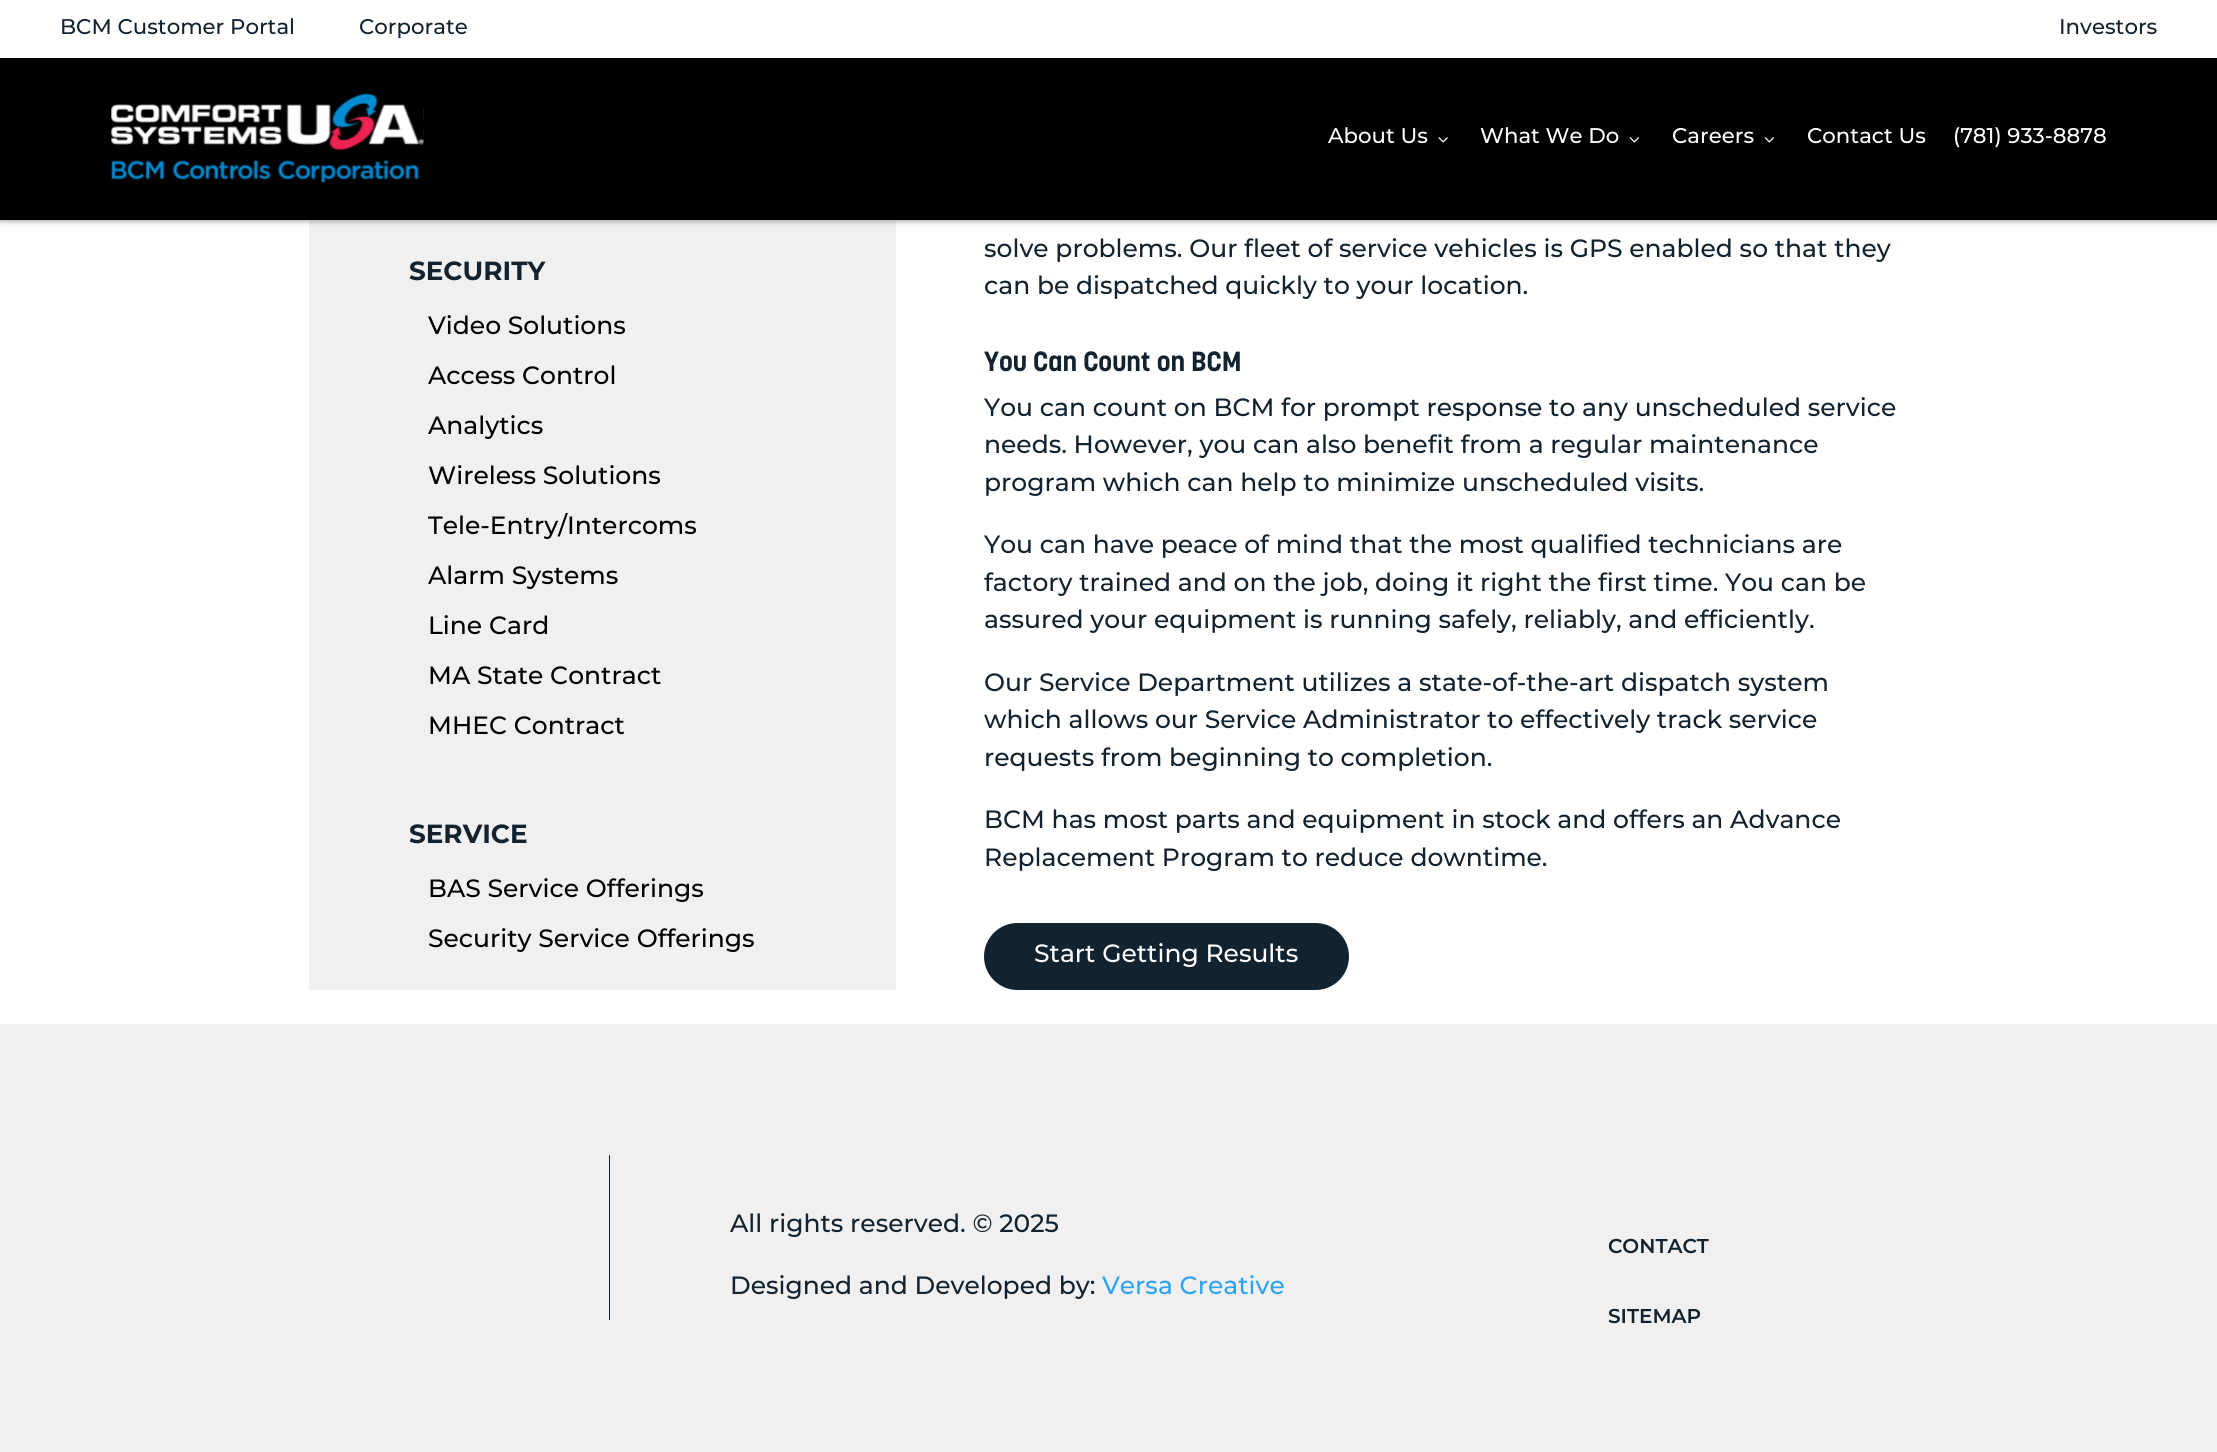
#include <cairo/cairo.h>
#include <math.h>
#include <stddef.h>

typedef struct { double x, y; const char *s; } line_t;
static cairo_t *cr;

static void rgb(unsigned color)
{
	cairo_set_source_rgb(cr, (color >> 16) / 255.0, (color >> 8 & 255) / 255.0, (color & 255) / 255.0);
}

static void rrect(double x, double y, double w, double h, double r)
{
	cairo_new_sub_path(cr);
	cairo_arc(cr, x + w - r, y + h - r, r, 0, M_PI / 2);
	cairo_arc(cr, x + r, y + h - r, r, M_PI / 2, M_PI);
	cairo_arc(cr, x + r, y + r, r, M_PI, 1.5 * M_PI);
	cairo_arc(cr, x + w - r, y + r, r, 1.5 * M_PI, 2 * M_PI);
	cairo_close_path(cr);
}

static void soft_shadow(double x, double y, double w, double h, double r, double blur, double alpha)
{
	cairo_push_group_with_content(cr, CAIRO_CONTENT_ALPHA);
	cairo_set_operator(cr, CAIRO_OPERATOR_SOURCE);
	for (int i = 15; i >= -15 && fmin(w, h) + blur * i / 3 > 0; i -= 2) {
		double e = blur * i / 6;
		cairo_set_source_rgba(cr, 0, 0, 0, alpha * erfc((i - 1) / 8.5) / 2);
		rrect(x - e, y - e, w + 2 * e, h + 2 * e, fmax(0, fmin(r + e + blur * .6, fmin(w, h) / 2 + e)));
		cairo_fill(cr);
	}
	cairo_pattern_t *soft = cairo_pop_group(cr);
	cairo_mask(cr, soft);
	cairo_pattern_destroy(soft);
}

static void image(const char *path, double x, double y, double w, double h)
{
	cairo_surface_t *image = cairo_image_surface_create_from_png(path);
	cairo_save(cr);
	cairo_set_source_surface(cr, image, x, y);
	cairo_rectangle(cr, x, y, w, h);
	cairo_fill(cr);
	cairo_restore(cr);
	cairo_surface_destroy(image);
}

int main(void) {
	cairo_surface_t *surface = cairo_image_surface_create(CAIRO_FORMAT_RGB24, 2217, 1452);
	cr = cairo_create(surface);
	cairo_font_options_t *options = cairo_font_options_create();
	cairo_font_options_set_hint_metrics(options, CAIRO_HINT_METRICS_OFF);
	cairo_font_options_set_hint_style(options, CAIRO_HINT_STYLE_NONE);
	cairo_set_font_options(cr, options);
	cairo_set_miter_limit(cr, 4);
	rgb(0xffffff);
	cairo_paint(cr);
	rgb(0xf0f0f0);
	cairo_rectangle(cr, 309, 220, 587, 770);
	cairo_fill(cr);
	rgb(0x231f20);
	soft_shadow(0, -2, 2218, 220, 0, 4, 1);
	rgb(0x000000);
	cairo_rectangle(cr, 0, 58, 2217, 162);
	cairo_fill(cr);
	rgb(0xffffff);
	cairo_rectangle(cr, 0, 0, 2217, 58);
	cairo_fill(cr);
	image("img/1.png", 111, 93, 313, 90);
	image("img/2.png", 1438, 137, 10, 6);
	image("img/3.png", 1629, 137, 10, 6);
	image("img/3.png", 1764, 137, 10, 6);
	rgb(0x12222e);
	rrect(984, 923, 365, 67, 33.5);
	cairo_fill(cr);
	rgb(0xf0f0f0);
	cairo_rectangle(cr, 0, 1024, 2217, 428);
	cairo_fill(cr);
	rgb(0x12222e);
	cairo_rectangle(cr, 609, 1155, 1, 165);
	cairo_fill(cr);
	cairo_select_font_face(cr, "Montserrat Medium", CAIRO_FONT_SLANT_NORMAL, CAIRO_FONT_WEIGHT_NORMAL);
	cairo_set_font_size(cr, 21.25);
	{
		static const line_t items[] = {
			{60, 34, "BCM Customer Portal"},
			{359, 34, "Corporate"},
			{2059, 34, "Investors"},
		};
		for (size_t i = 0; i < sizeof items / sizeof *items; i++) {
			cairo_move_to(cr, items[i].x, items[i].y);
			cairo_show_text(cr, items[i].s);
		}
	}
	rgb(0xffffff);
	{
		static const line_t items[] = {
			{1328, 143, "About Us"},
			{1480, 143, "What We Do"},
			{1672, 143, "Careers"},
			{1807, 143, "Contact Us"},
			{1953, 143, "(781) 933-8878"},
		};
		for (size_t i = 0; i < sizeof items / sizeof *items; i++) {
			cairo_move_to(cr, items[i].x, items[i].y);
			cairo_show_text(cr, items[i].s);
		}
	}
	cairo_select_font_face(cr, "Montserrat", CAIRO_FONT_SLANT_NORMAL, CAIRO_FONT_WEIGHT_BOLD);
	cairo_set_font_size(cr, 26.25);
	rgb(0x12222e);
	cairo_move_to(cr, 409, 280);
	cairo_show_text(cr, "SECURITY");
	cairo_select_font_face(cr, "Montserrat Medium", CAIRO_FONT_SLANT_NORMAL, CAIRO_FONT_WEIGHT_NORMAL);
	cairo_set_font_size(cr, 25);
	rgb(0x000000);
	{
		static const line_t items[] = {
			{428, 334, "Video Solutions"},
			{428, 384, "Access Control"},
			{428, 434, "Analytics"},
			{428, 484, "Wireless Solutions"},
			{428, 534, "Tele-Entry/Intercoms"},
			{428, 584, "Alarm Systems"},
			{428, 634, "Line Card"},
			{428, 684, "MA State Contract"},
			{428, 734, "MHEC Contract"},
		};
		for (size_t i = 0; i < sizeof items / sizeof *items; i++) {
			cairo_move_to(cr, items[i].x, items[i].y);
			cairo_show_text(cr, items[i].s);
		}
	}
	cairo_select_font_face(cr, "Montserrat", CAIRO_FONT_SLANT_NORMAL, CAIRO_FONT_WEIGHT_BOLD);
	cairo_set_font_size(cr, 26.25);
	rgb(0x12222e);
	cairo_move_to(cr, 409, 843);
	cairo_show_text(cr, "SERVICE");
	cairo_select_font_face(cr, "Montserrat Medium", CAIRO_FONT_SLANT_NORMAL, CAIRO_FONT_WEIGHT_NORMAL);
	cairo_set_font_size(cr, 25);
	rgb(0x000000);
	cairo_move_to(cr, 428, 897);
	cairo_show_text(cr, "BAS Service Offerings");
	cairo_move_to(cr, 428, 947);
	cairo_show_text(cr, "Security Service Offerings");
	rgb(0x12222e);
	cairo_move_to(cr, 984, 257);
	cairo_show_text(cr, "solve problems. Our fleet of service vehicles is GPS enabled so that they");
	cairo_move_to(cr, 984, 294);
	cairo_show_text(cr, "can be dispatched quickly to your location.");
	cairo_select_font_face(cr, "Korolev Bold", CAIRO_FONT_SLANT_NORMAL, CAIRO_FONT_WEIGHT_BOLD);
	cairo_set_font_size(cr, 27.5);
	cairo_move_to(cr, 984, 371);
	cairo_show_text(cr, "You Can Count on BCM");
	cairo_select_font_face(cr, "Montserrat Medium", CAIRO_FONT_SLANT_NORMAL, CAIRO_FONT_WEIGHT_NORMAL);
	cairo_set_font_size(cr, 25);
	{
		static const line_t items[] = {
			{984, 416, "You can count on BCM for prompt response to any unscheduled service"},
			{984, 453, "needs. However, you can also benefit from a regular maintenance"},
			{984, 491, "program which can help to minimize unscheduled visits."},
			{984, 553, "You can have peace of mind that the most qualified technicians are"},
			{984, 591, "factory trained and on the job, doing it right the first time. You can be"},
			{984, 628, "assured your equipment is running safely, reliably, and efficiently."},
			{984, 691, "Our Service Department utilizes a state-of-the-art dispatch system"},
			{984, 728, "which allows our Service Administrator to effectively track service"},
			{984, 766, "requests from beginning to completion."},
			{984, 828, "BCM has most parts and equipment in stock and offers an Advance"},
			{984, 866, "Replacement Program to reduce downtime."},
		};
		for (size_t i = 0; i < sizeof items / sizeof *items; i++) {
			cairo_move_to(cr, items[i].x, items[i].y);
			cairo_show_text(cr, items[i].s);
		}
	}
	rgb(0xffffff);
	cairo_move_to(cr, 1034, 962);
	cairo_show_text(cr, "Start Getting Results");
	rgb(0x12222e);
	cairo_move_to(cr, 730, 1232);
	cairo_show_text(cr, "All rights reserved. © 2025");
	cairo_move_to(cr, 730, 1294);
	cairo_show_text(cr, "Designed and Developed by:");
	rgb(0x2ea3f2);
	cairo_move_to(cr, 1102, 1294);
	cairo_show_text(cr, "Versa Creative");
	cairo_select_font_face(cr, "Montserrat SemiBold", CAIRO_FONT_SLANT_NORMAL, CAIRO_FONT_WEIGHT_NORMAL);
	cairo_set_font_size(cr, 20);
	rgb(0x12222e);
	cairo_move_to(cr, 1608, 1253);
	cairo_show_text(cr, "CONTACT");
	cairo_move_to(cr, 1608, 1323);
	cairo_show_text(cr, "SITEMAP");
	cairo_surface_write_to_png(surface, "page.png");
	cairo_font_options_destroy(options);
	cairo_destroy(cr);
	cairo_surface_destroy(surface);
	return 0;
}
